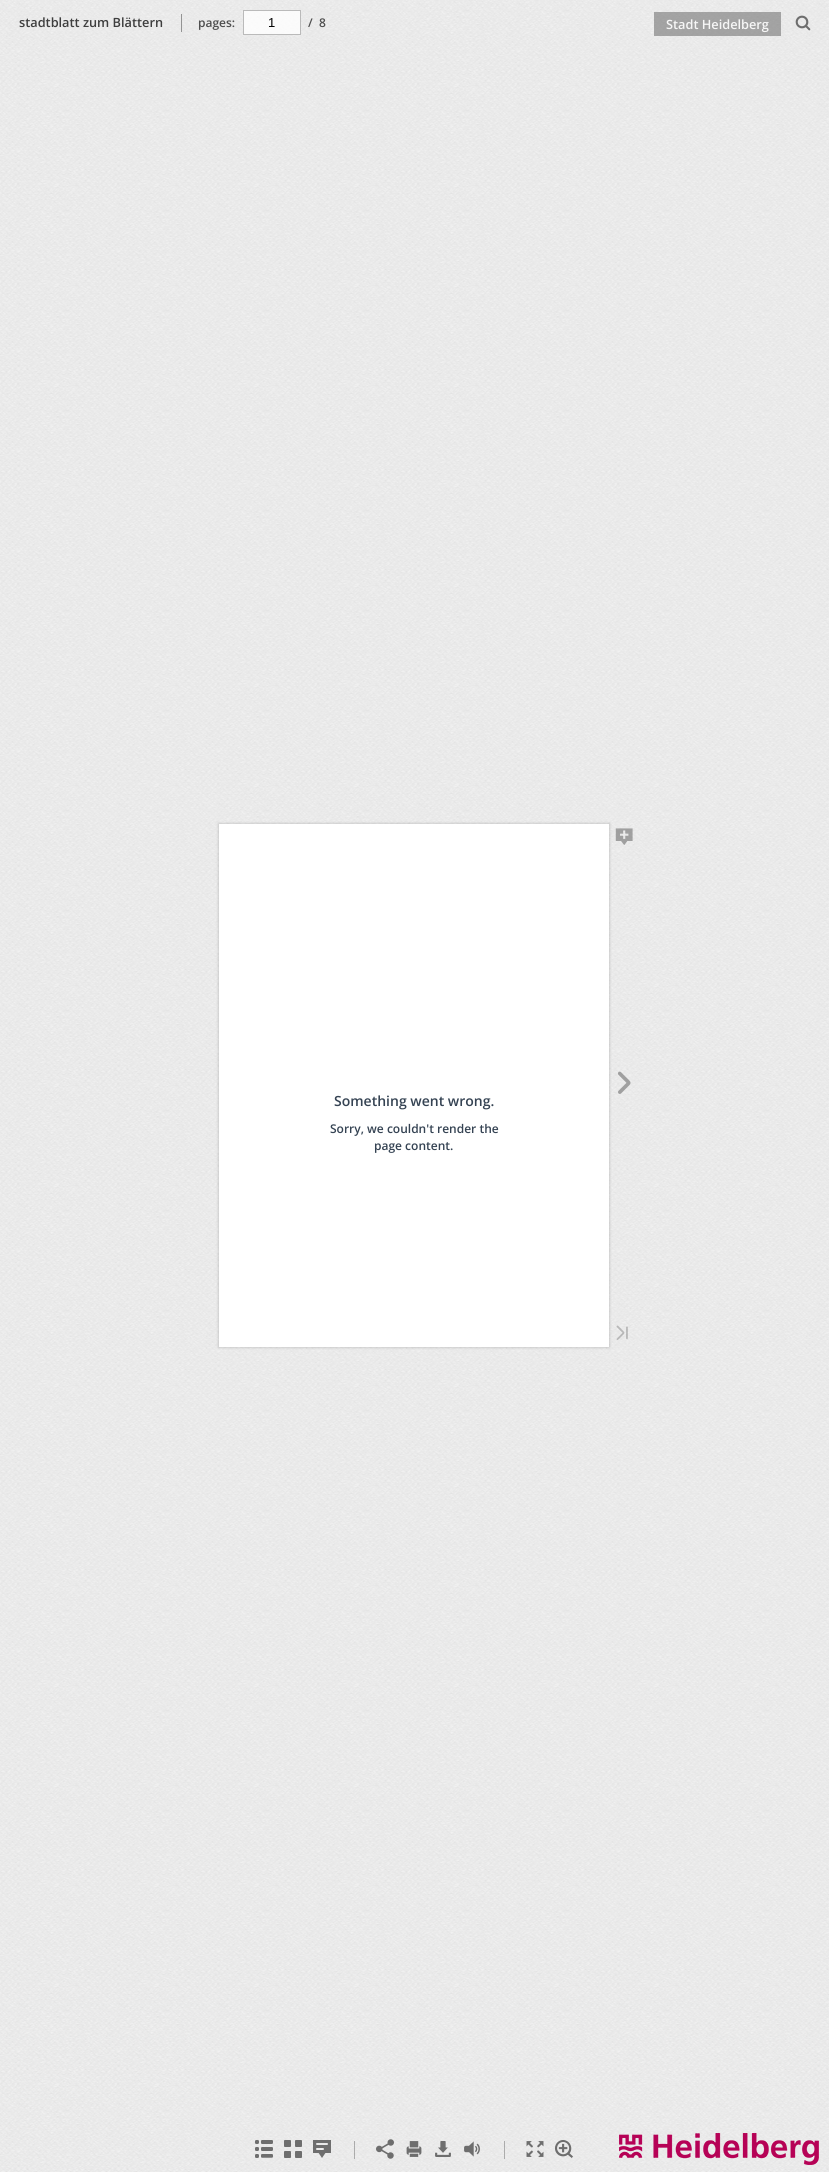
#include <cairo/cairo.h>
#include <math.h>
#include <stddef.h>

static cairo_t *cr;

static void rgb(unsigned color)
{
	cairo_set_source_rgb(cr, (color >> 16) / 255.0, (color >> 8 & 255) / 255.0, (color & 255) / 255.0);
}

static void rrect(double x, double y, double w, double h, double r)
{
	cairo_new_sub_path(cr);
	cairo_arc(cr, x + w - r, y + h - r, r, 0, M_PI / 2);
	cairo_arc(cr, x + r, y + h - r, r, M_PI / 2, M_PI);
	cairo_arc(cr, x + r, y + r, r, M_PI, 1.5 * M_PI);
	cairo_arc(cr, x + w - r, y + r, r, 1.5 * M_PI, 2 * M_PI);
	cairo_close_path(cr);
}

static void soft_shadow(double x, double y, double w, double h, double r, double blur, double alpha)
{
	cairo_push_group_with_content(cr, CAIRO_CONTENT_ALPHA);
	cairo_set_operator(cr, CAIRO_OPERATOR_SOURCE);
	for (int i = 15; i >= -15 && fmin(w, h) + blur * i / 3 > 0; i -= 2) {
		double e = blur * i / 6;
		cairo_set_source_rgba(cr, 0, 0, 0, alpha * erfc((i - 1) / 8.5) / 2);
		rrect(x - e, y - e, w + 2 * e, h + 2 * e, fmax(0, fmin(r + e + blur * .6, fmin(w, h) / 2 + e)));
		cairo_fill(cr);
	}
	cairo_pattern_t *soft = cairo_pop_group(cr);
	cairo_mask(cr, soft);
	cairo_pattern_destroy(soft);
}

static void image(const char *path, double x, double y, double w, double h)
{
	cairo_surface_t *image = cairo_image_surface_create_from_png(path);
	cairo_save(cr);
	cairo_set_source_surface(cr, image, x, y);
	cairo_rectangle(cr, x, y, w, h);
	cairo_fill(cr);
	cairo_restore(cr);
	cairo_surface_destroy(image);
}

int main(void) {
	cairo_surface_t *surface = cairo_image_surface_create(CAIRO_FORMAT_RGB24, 829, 2172);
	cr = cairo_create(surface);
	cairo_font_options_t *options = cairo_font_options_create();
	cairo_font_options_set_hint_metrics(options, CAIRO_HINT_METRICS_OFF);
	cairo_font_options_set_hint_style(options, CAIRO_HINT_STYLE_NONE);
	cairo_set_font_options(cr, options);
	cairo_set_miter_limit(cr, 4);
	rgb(0xf2f2f2);
	cairo_paint(cr);
	image("img/1.png", 0, 0, 829, 2172);
	cairo_set_source_rgba(cr, 0.243, 0.243, 0.243, 0.5);
	cairo_rectangle(cr, 181, 14, 1, 18);
	cairo_fill(cr);
	cairo_set_source_rgba(cr, 1, 1, 1, 0.8);
	cairo_rectangle(cr, 243.5, 10.5, 57, 24);
	cairo_fill_preserve(cr);
	rgb(0xbababa);
	cairo_set_line_width(cr, 1);
	cairo_stroke(cr);
	cairo_set_source_rgba(cr, 0.451, 0.451, 0.451, 0.6);
	cairo_rectangle(cr, 654, 12, 127, 24);
	cairo_fill(cr);
	image("img/2.png", 795, 15, 16, 16);
	rgb(0x737373);
	soft_shadow(218, 823, 392, 525, 0, 1, 0.25);
	image("img/3.png", 615, 828, 18, 17);
	image("img/4.png", 617, 1071, 14, 23);
	image("img/5.png", 616, 1325, 12, 15);
	rgb(0xffffff);
	cairo_rectangle(cr, 219, 824, 390, 523);
	cairo_fill(cr);
	image("img/6.png", 255, 2140, 18, 18);
	image("img/7.png", 284, 2140, 18, 18);
	image("img/8.png", 313, 2140, 18, 18);
	cairo_set_source_rgba(cr, 0.431, 0.431, 0.431, 0.5);
	cairo_rectangle(cr, 354, 2141, 1, 18);
	cairo_fill(cr);
	image("img/9.png", 376, 2139, 18, 20);
	image("img/10.png", 406, 2141, 16, 16);
	image("img/11.png", 435, 2141, 16, 16);
	image("img/12.png", 464, 2141, 16, 16);
	cairo_rectangle(cr, 504, 2141, 1, 18);
	cairo_fill(cr);
	image("img/13.png", 526, 2141, 18, 16);
	image("img/14.png", 555, 2140, 18, 18);
	image("img/15.png", 619, 2133, 200, 32);
	cairo_select_font_face(cr, "Open Sans SemiBold", CAIRO_FONT_SLANT_NORMAL, CAIRO_FONT_WEIGHT_NORMAL);
	cairo_set_font_size(cr, 12.75);
	rgb(0x3e3e3e);
	cairo_move_to(cr, 19, 27);
	cairo_show_text(cr, "stadtblatt zum Blättern");
	cairo_set_font_size(cr, 12);
	rgb(0x4f4f4f);
	cairo_move_to(cr, 198, 27);
	cairo_show_text(cr, "pages:");
	cairo_select_font_face(cr, "Liberation Sans", CAIRO_FONT_SLANT_NORMAL, CAIRO_FONT_WEIGHT_NORMAL);
	cairo_set_font_size(cr, 13);
	rgb(0x000000);
	cairo_move_to(cr, 268, 27);
	cairo_show_text(cr, "1");
	cairo_select_font_face(cr, "Open Sans SemiBold", CAIRO_FONT_SLANT_NORMAL, CAIRO_FONT_WEIGHT_NORMAL);
	cairo_set_font_size(cr, 12);
	rgb(0x4f4f4f);
	cairo_move_to(cr, 308, 27);
	cairo_show_text(cr, "/");
	cairo_move_to(cr, 319, 27);
	cairo_show_text(cr, "8");
	cairo_set_font_size(cr, 12.75);
	rgb(0xf6f6f6);
	cairo_move_to(cr, 666, 29);
	cairo_show_text(cr, "Stadt Heidelberg");
	cairo_set_font_size(cr, 14);
	rgb(0x354353);
	cairo_move_to(cr, 334, 1106);
	cairo_show_text(cr, "Something went wrong.");
	cairo_set_font_size(cr, 12);
	cairo_move_to(cr, 330, 1133);
	cairo_show_text(cr, "Sorry, we couldn't render the");
	cairo_move_to(cr, 374, 1150);
	cairo_show_text(cr, "page content.");
	cairo_surface_write_to_png(surface, "page.png");
	cairo_font_options_destroy(options);
	cairo_destroy(cr);
	cairo_surface_destroy(surface);
	return 0;
}
